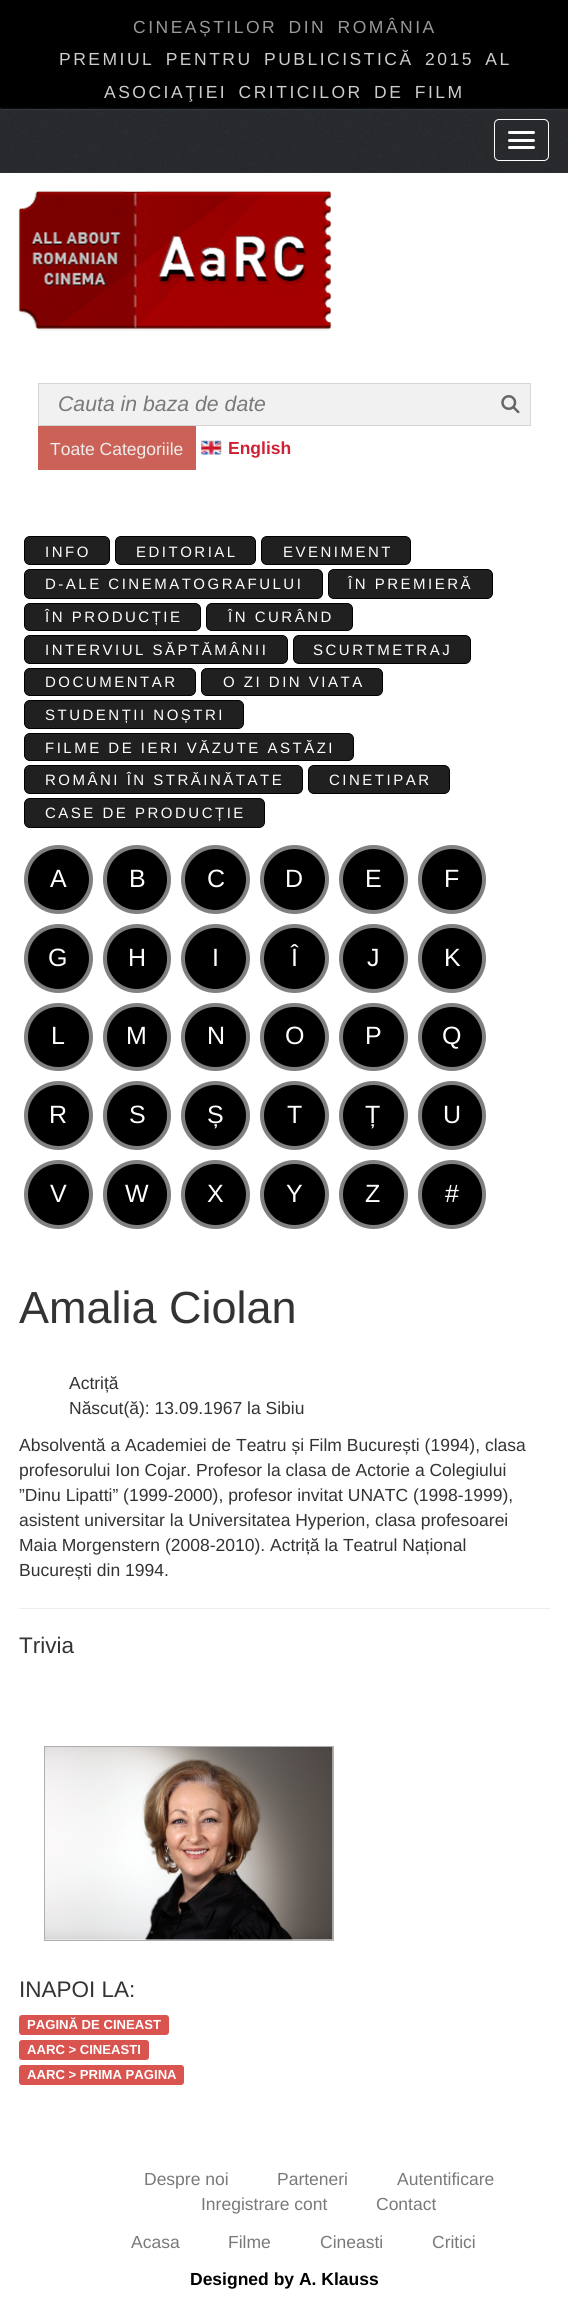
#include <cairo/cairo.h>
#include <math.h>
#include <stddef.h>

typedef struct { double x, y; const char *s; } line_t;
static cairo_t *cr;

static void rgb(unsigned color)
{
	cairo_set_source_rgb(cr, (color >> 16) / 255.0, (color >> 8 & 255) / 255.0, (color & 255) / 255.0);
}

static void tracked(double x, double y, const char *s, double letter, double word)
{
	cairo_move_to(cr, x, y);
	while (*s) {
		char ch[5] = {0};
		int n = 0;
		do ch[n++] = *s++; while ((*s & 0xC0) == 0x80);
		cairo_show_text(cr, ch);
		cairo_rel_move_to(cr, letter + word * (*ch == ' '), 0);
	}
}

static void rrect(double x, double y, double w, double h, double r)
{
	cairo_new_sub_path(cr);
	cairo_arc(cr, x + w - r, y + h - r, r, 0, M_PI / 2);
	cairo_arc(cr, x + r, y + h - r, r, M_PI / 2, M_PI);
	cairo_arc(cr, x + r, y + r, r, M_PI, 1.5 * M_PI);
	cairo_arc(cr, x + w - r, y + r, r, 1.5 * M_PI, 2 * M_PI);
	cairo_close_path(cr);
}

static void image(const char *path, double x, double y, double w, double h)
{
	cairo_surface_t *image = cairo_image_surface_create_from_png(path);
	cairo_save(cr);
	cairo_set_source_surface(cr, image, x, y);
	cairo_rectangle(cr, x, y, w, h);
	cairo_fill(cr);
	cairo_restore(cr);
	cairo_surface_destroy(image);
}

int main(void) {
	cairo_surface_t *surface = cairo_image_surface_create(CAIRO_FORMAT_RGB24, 568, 2319);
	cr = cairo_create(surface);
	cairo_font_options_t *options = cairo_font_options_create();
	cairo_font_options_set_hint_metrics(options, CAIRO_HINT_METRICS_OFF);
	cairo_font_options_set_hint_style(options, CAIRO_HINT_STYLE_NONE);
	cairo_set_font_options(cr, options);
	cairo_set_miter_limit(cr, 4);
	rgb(0xffffff);
	cairo_paint(cr);
	rgb(0x000000);
	cairo_rectangle(cr, 0, 0, 568, 108);
	cairo_fill(cr);
	rgb(0x2b2e31);
	cairo_rectangle(cr, 0, 108, 568, 65);
	cairo_fill(cr);
	image("img/1.png", 0, 107, 568, 65);
	rgb(0x373b3f);
	cairo_rectangle(cr, 1, 109, 567, 1);
	cairo_fill(cr);
	rgb(0x070808);
	cairo_new_path(cr);
	cairo_move_to(cr, 0, 108);
	cairo_line_to(cr, 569, 108);
	cairo_line_to(cr, 568, 109);
	cairo_line_to(cr, 1, 109);
	cairo_close_path(cr);
	cairo_fill(cr);
	rrect(494.5, 119.5, 54, 41, 4.5);
	rgb(0xffffff);
	cairo_set_line_width(cr, 1);
	cairo_stroke(cr);
	rrect(508, 131, 27, 3, 1.5);
	cairo_fill(cr);
	rrect(508, 139, 27, 3, 1.5);
	cairo_fill(cr);
	rrect(508, 146, 27, 3, 1.5);
	cairo_fill(cr);
	image("img/2.png", 18, 191, 314, 140);
	rgb(0xf1f1f1);
	cairo_rectangle(cr, 39, 384, 491, 41);
	cairo_fill(cr);
	image("img/3.png", 501, 395, 19, 19);
	cairo_rectangle(cr, 38.5, 383.5, 492, 42);
	rgb(0xd6d6d6);
	cairo_stroke(cr);
	rgb(0xcc6257);
	cairo_rectangle(cr, 38, 426, 158, 44);
	cairo_fill(cr);
	image("img/4.png", 201, 440, 21, 15);
	rgb(0x202020);
	rrect(24.5, 536.5, 85, 28, 5.5);
	cairo_fill_preserve(cr);
	rgb(0x000000);
	cairo_stroke(cr);
	rgb(0x202020);
	rrect(115.5, 536.5, 140, 28, 5.5);
	cairo_fill_preserve(cr);
	rgb(0x000000);
	cairo_stroke(cr);
	rgb(0x202020);
	rrect(261.5, 536.5, 149, 28, 5.5);
	cairo_fill_preserve(cr);
	rgb(0x000000);
	cairo_stroke(cr);
	rgb(0x202020);
	rrect(24.5, 569.5, 298, 29, 5.5);
	cairo_fill_preserve(cr);
	rgb(0x000000);
	cairo_stroke(cr);
	rgb(0x202020);
	rrect(328.5, 569.5, 164, 29, 5.5);
	cairo_fill_preserve(cr);
	rgb(0x000000);
	cairo_stroke(cr);
	rgb(0x202020);
	rrect(24.5, 603.5, 176, 27, 5.5);
	cairo_fill_preserve(cr);
	rgb(0x000000);
	cairo_stroke(cr);
	rgb(0x202020);
	rrect(206.5, 603.5, 146, 27, 5.5);
	cairo_fill_preserve(cr);
	rgb(0x000000);
	cairo_stroke(cr);
	rgb(0x202020);
	rrect(24.5, 635.5, 263, 28, 5.5);
	cairo_fill_preserve(cr);
	rgb(0x000000);
	cairo_stroke(cr);
	rgb(0x202020);
	rrect(293.5, 635.5, 177, 28, 5.5);
	cairo_fill_preserve(cr);
	rgb(0x000000);
	cairo_stroke(cr);
	rgb(0x202020);
	rrect(24.5, 668.5, 171, 27, 5.5);
	cairo_fill_preserve(cr);
	rgb(0x000000);
	cairo_stroke(cr);
	rgb(0x202020);
	rrect(201.5, 668.5, 181, 27, 5.5);
	cairo_fill_preserve(cr);
	rgb(0x000000);
	cairo_stroke(cr);
	rgb(0x202020);
	rrect(24.5, 700.5, 219, 28, 5.5);
	cairo_fill_preserve(cr);
	rgb(0x000000);
	cairo_stroke(cr);
	rgb(0x202020);
	rrect(24.5, 733.5, 329, 27, 5.5);
	cairo_fill_preserve(cr);
	rgb(0x000000);
	cairo_stroke(cr);
	rgb(0x202020);
	rrect(24.5, 765.5, 278, 28, 5.5);
	cairo_fill_preserve(cr);
	rgb(0x000000);
	cairo_stroke(cr);
	rgb(0x202020);
	rrect(308.5, 765.5, 141, 28, 5.5);
	cairo_fill_preserve(cr);
	rgb(0x000000);
	cairo_stroke(cr);
	rgb(0x202020);
	rrect(24.5, 798.5, 240, 29, 5.5);
	cairo_fill_preserve(cr);
	rgb(0x000000);
	cairo_stroke(cr);
	cairo_arc(cr, 58.5, 879.5, 32.5, 0, 2 * M_PI);
	cairo_fill_preserve(cr);
	rgb(0x808080);
	cairo_set_line_width(cr, 4);
	cairo_stroke(cr);
	rgb(0x000000);
	rrect(105, 847, 64, 65, 32);
	cairo_fill_preserve(cr);
	rgb(0x808080);
	cairo_stroke(cr);
	rgb(0x000000);
	cairo_arc(cr, 215.5, 879.5, 32.5, 0, 2 * M_PI);
	cairo_fill_preserve(cr);
	rgb(0x808080);
	cairo_stroke(cr);
	rgb(0x000000);
	cairo_arc(cr, 294.5, 879.5, 32.5, 0, 2 * M_PI);
	cairo_fill_preserve(cr);
	rgb(0x808080);
	cairo_stroke(cr);
	rgb(0x000000);
	cairo_arc(cr, 373.5, 879.5, 32.5, 0, 2 * M_PI);
	cairo_fill_preserve(cr);
	rgb(0x808080);
	cairo_stroke(cr);
	rgb(0x000000);
	rrect(420, 847, 64, 65, 32);
	cairo_fill_preserve(cr);
	rgb(0x808080);
	cairo_stroke(cr);
	rgb(0x000000);
	cairo_arc(cr, 58.5, 958.5, 32.5, 0, 2 * M_PI);
	cairo_fill_preserve(cr);
	rgb(0x808080);
	cairo_stroke(cr);
	rgb(0x000000);
	rrect(105, 926, 64, 65, 32);
	cairo_fill_preserve(cr);
	rgb(0x808080);
	cairo_stroke(cr);
	rgb(0x000000);
	cairo_arc(cr, 215.5, 958.5, 32.5, 0, 2 * M_PI);
	cairo_fill_preserve(cr);
	rgb(0x808080);
	cairo_stroke(cr);
	rgb(0x000000);
	cairo_arc(cr, 294.5, 958.5, 32.5, 0, 2 * M_PI);
	cairo_fill_preserve(cr);
	rgb(0x808080);
	cairo_stroke(cr);
	rgb(0x000000);
	cairo_arc(cr, 373.5, 958.5, 32.5, 0, 2 * M_PI);
	cairo_fill_preserve(cr);
	rgb(0x808080);
	cairo_stroke(cr);
	rgb(0x000000);
	rrect(420, 926, 64, 65, 32);
	cairo_fill_preserve(cr);
	rgb(0x808080);
	cairo_stroke(cr);
	rgb(0x000000);
	rrect(26, 1005, 65, 64, 32);
	cairo_fill_preserve(cr);
	rgb(0x808080);
	cairo_stroke(cr);
	rgb(0x000000);
	cairo_arc(cr, 137, 1037, 32, 0, 2 * M_PI);
	cairo_fill_preserve(cr);
	rgb(0x808080);
	cairo_stroke(cr);
	rgb(0x000000);
	rrect(183, 1005, 65, 64, 32);
	cairo_fill_preserve(cr);
	rgb(0x808080);
	cairo_stroke(cr);
	rgb(0x000000);
	rrect(262, 1005, 65, 64, 32);
	cairo_fill_preserve(cr);
	rgb(0x808080);
	cairo_stroke(cr);
	rgb(0x000000);
	rrect(341, 1005, 65, 64, 32);
	cairo_fill_preserve(cr);
	rgb(0x808080);
	cairo_stroke(cr);
	rgb(0x000000);
	cairo_arc(cr, 452, 1037, 32, 0, 2 * M_PI);
	cairo_fill_preserve(cr);
	rgb(0x808080);
	cairo_stroke(cr);
	rgb(0x000000);
	cairo_arc(cr, 58.5, 1115.5, 32.5, 0, 2 * M_PI);
	cairo_fill_preserve(cr);
	rgb(0x808080);
	cairo_stroke(cr);
	rgb(0x000000);
	rrect(105, 1083, 64, 65, 32);
	cairo_fill_preserve(cr);
	rgb(0x808080);
	cairo_stroke(cr);
	rgb(0x000000);
	cairo_arc(cr, 215.5, 1115.5, 32.5, 0, 2 * M_PI);
	cairo_fill_preserve(cr);
	rgb(0x808080);
	cairo_stroke(cr);
	rgb(0x000000);
	cairo_arc(cr, 294.5, 1115.5, 32.5, 0, 2 * M_PI);
	cairo_fill_preserve(cr);
	rgb(0x808080);
	cairo_stroke(cr);
	rgb(0x000000);
	cairo_arc(cr, 373.5, 1115.5, 32.5, 0, 2 * M_PI);
	cairo_fill_preserve(cr);
	rgb(0x808080);
	cairo_stroke(cr);
	rgb(0x000000);
	rrect(420, 1083, 64, 65, 32);
	cairo_fill_preserve(cr);
	rgb(0x808080);
	cairo_stroke(cr);
	rgb(0x000000);
	cairo_arc(cr, 58.5, 1194.5, 32.5, 0, 2 * M_PI);
	cairo_fill_preserve(cr);
	rgb(0x808080);
	cairo_stroke(cr);
	rgb(0x000000);
	rrect(105, 1162, 64, 65, 32);
	cairo_fill_preserve(cr);
	rgb(0x808080);
	cairo_stroke(cr);
	rgb(0x000000);
	cairo_arc(cr, 215.5, 1194.5, 32.5, 0, 2 * M_PI);
	cairo_fill_preserve(cr);
	rgb(0x808080);
	cairo_stroke(cr);
	rgb(0x000000);
	cairo_arc(cr, 294.5, 1194.5, 32.5, 0, 2 * M_PI);
	cairo_fill_preserve(cr);
	rgb(0x808080);
	cairo_stroke(cr);
	rgb(0x000000);
	cairo_arc(cr, 373.5, 1194.5, 32.5, 0, 2 * M_PI);
	cairo_fill_preserve(cr);
	rgb(0x808080);
	cairo_stroke(cr);
	rgb(0x000000);
	rrect(420, 1162, 64, 65, 32);
	cairo_fill_preserve(cr);
	rgb(0x808080);
	cairo_stroke(cr);
	rgb(0xeeeeee);
	cairo_rectangle(cr, 19, 1608, 531, 1);
	cairo_fill(cr);
	cairo_rectangle(cr, 44.5, 1746.5, 289, 194);
	rgb(0xafafaf);
	cairo_set_line_width(cr, 1);
	cairo_stroke(cr);
	image("img/5.png", 45, 1747, 288, 193);
	rgb(0xd9534f);
	rrect(19, 2015, 150, 20, 3);
	cairo_fill(cr);
	rrect(19, 2040, 130, 20, 3);
	cairo_fill(cr);
	rrect(19, 2065, 165, 20, 3);
	cairo_fill(cr);
	cairo_select_font_face(cr, "Liberation Sans", CAIRO_FONT_SLANT_NORMAL, CAIRO_FONT_WEIGHT_NORMAL);
	cairo_set_font_size(cr, 17.5);
	rgb(0x999999);
	tracked(133, 33, "CINEAȘTILOR DIN ROMÂNIA", 2.5, 4);
	rgb(0xcdcdcd);
	tracked(59, 65, "PREMIUL PENTRU PUBLICISTICĂ 2015 AL", 2.5, 4);
	tracked(104, 98, "ASOCIAŢIEI CRITICILOR DE FILM", 2.5, 4);
	cairo_select_font_face(cr, "Liberation Sans", CAIRO_FONT_SLANT_ITALIC, CAIRO_FONT_WEIGHT_NORMAL);
	cairo_set_font_size(cr, 21.25);
	rgb(0x797979);
	cairo_move_to(cr, 58, 411);
	cairo_show_text(cr, "Cauta in baza de date");
	cairo_select_font_face(cr, "Liberation Sans", CAIRO_FONT_SLANT_NORMAL, CAIRO_FONT_WEIGHT_NORMAL);
	cairo_set_font_size(cr, 17.5);
	rgb(0xeeeeee);
	cairo_move_to(cr, 50, 455);
	cairo_show_text(cr, "Toate Categoriile");
	cairo_select_font_face(cr, "Liberation Sans", CAIRO_FONT_SLANT_NORMAL, CAIRO_FONT_WEIGHT_BOLD);
	rgb(0xd12134);
	cairo_move_to(cr, 228, 454);
	cairo_show_text(cr, "English");
	cairo_select_font_face(cr, "Liberation Sans", CAIRO_FONT_SLANT_NORMAL, CAIRO_FONT_WEIGHT_NORMAL);
	cairo_set_font_size(cr, 15);
	rgb(0xffffff);
	{
		static const line_t items[] = {
			{45, 557, "INFO"},
			{136, 557, "EDITORIAL"},
			{283, 557, "EVENIMENT"},
			{45, 589, "D-ALE CINEMATOGRAFULUI"},
			{348, 589, "ÎN PREMIERĂ"},
			{45, 622, "ÎN PRODUCȚIE"},
			{228, 622, "ÎN CURÂND"},
			{45, 655, "INTERVIUL SĂPTĂMÂNII"},
			{313, 655, "SCURTMETRAJ"},
			{45, 687, "DOCUMENTAR"},
			{223, 687, "O ZI DIN VIATA"},
			{45, 720, "STUDENȚII NOȘTRI"},
			{45, 753, "FILME DE IERI VĂZUTE ASTĂZI"},
			{45, 785, "ROMÂNI ÎN STRĂINĂTATE"},
			{329, 785, "CINETIPAR"},
			{45, 818, "CASE DE PRODUCȚIE"},
		};
		for (size_t i = 0; i < sizeof items / sizeof *items; i++) {
			tracked(items[i].x, items[i].y, items[i].s, 2.5, 0);
		}
	}
	cairo_set_font_size(cr, 25);
	{
		static const line_t items[] = {
			{50, 887, "A"},
			{129, 887, "B"},
			{207, 887, "C"},
			{285, 887, "D"},
			{365, 887, "E"},
			{444, 887, "F"},
			{48, 966, "G"},
			{128, 966, "H"},
			{212, 966, "I"},
			{291, 966, "Î"},
			{367, 966, "J"},
			{444, 966, "K"},
			{51, 1044, "L"},
			{126, 1044, "M"},
			{207, 1044, "N"},
			{285, 1044, "O"},
			{365, 1044, "P"},
			{442, 1044, "Q"},
			{49, 1123, "R"},
			{129, 1123, "S"},
			{207, 1123, "Ș"},
			{287, 1123, "T"},
			{365, 1123, "Ț"},
			{443, 1123, "U"},
			{50, 1202, "V"},
			{125, 1202, "W"},
			{207, 1202, "X"},
			{286, 1202, "Y"},
			{365, 1202, "Z"},
			{445, 1202, "#"},
		};
		for (size_t i = 0; i < sizeof items / sizeof *items; i++) {
			cairo_move_to(cr, items[i].x, items[i].y);
			cairo_show_text(cr, items[i].s);
		}
	}
	cairo_set_font_size(cr, 45);
	rgb(0x333333);
	cairo_move_to(cr, 19, 1323);
	cairo_show_text(cr, "Amalia Ciolan");
	cairo_set_font_size(cr, 17.5);
	{
		static const line_t items[] = {
			{69, 1389, "Actriță"},
			{69, 1414, "Născut(ă): 13.09.1967 la Sibiu"},
			{19, 1451, "Absolventă a Academiei de Teatru și Film București (1994), clasa"},
			{19, 1476, "profesorului Ion Cojar. Profesor la clasa de Actorie a Colegiului"},
			{19, 1501, "”Dinu Lipatti” (1999-2000), profesor invitat UNATC (1998-1999),"},
			{19, 1526, "asistent universitar la Universitatea Hyperion, clasa profesoarei"},
			{19, 1551, "Maia Morgenstern (2008-2010). Actriță la Teatrul Național"},
			{19, 1576, "București din 1994."},
		};
		for (size_t i = 0; i < sizeof items / sizeof *items; i++) {
			cairo_move_to(cr, items[i].x, items[i].y);
			cairo_show_text(cr, items[i].s);
		}
	}
	cairo_set_font_size(cr, 22.5);
	cairo_move_to(cr, 19, 1653);
	cairo_show_text(cr, "Trivia");
	cairo_move_to(cr, 19, 1997);
	cairo_show_text(cr, "INAPOI LA:");
	cairo_select_font_face(cr, "Liberation Sans", CAIRO_FONT_SLANT_NORMAL, CAIRO_FONT_WEIGHT_BOLD);
	cairo_set_font_size(cr, 13.1);
	rgb(0xffffff);
	{
		static const line_t items[] = {
			{27, 2029, "PAGINĂ DE CINEAST"},
			{27, 2054, "AARC > CINEASTI"},
			{27, 2079, "AARC > PRIMA PAGINA"},
		};
		for (size_t i = 0; i < sizeof items / sizeof *items; i++) {
			cairo_move_to(cr, items[i].x, items[i].y);
			cairo_show_text(cr, items[i].s);
		}
	}
	cairo_select_font_face(cr, "Liberation Sans", CAIRO_FONT_SLANT_NORMAL, CAIRO_FONT_WEIGHT_NORMAL);
	cairo_set_font_size(cr, 17.5);
	rgb(0x797979);
	{
		static const line_t items[] = {
			{144, 2185, "Despre noi"},
			{277, 2185, "Parteneri"},
			{397, 2185, "Autentificare"},
			{201, 2210, "Inregistrare cont"},
			{376, 2210, "Contact"},
			{131, 2248, "Acasa"},
			{228, 2248, "Filme"},
			{320, 2248, "Cineasti"},
			{432, 2248, "Critici"},
		};
		for (size_t i = 0; i < sizeof items / sizeof *items; i++) {
			cairo_move_to(cr, items[i].x, items[i].y);
			cairo_show_text(cr, items[i].s);
		}
	}
	cairo_select_font_face(cr, "Liberation Sans", CAIRO_FONT_SLANT_NORMAL, CAIRO_FONT_WEIGHT_BOLD);
	rgb(0x000000);
	cairo_move_to(cr, 190, 2285);
	cairo_show_text(cr, "Designed by A. Klauss");
	cairo_surface_write_to_png(surface, "page.png");
	cairo_font_options_destroy(options);
	cairo_destroy(cr);
	cairo_surface_destroy(surface);
	return 0;
}
